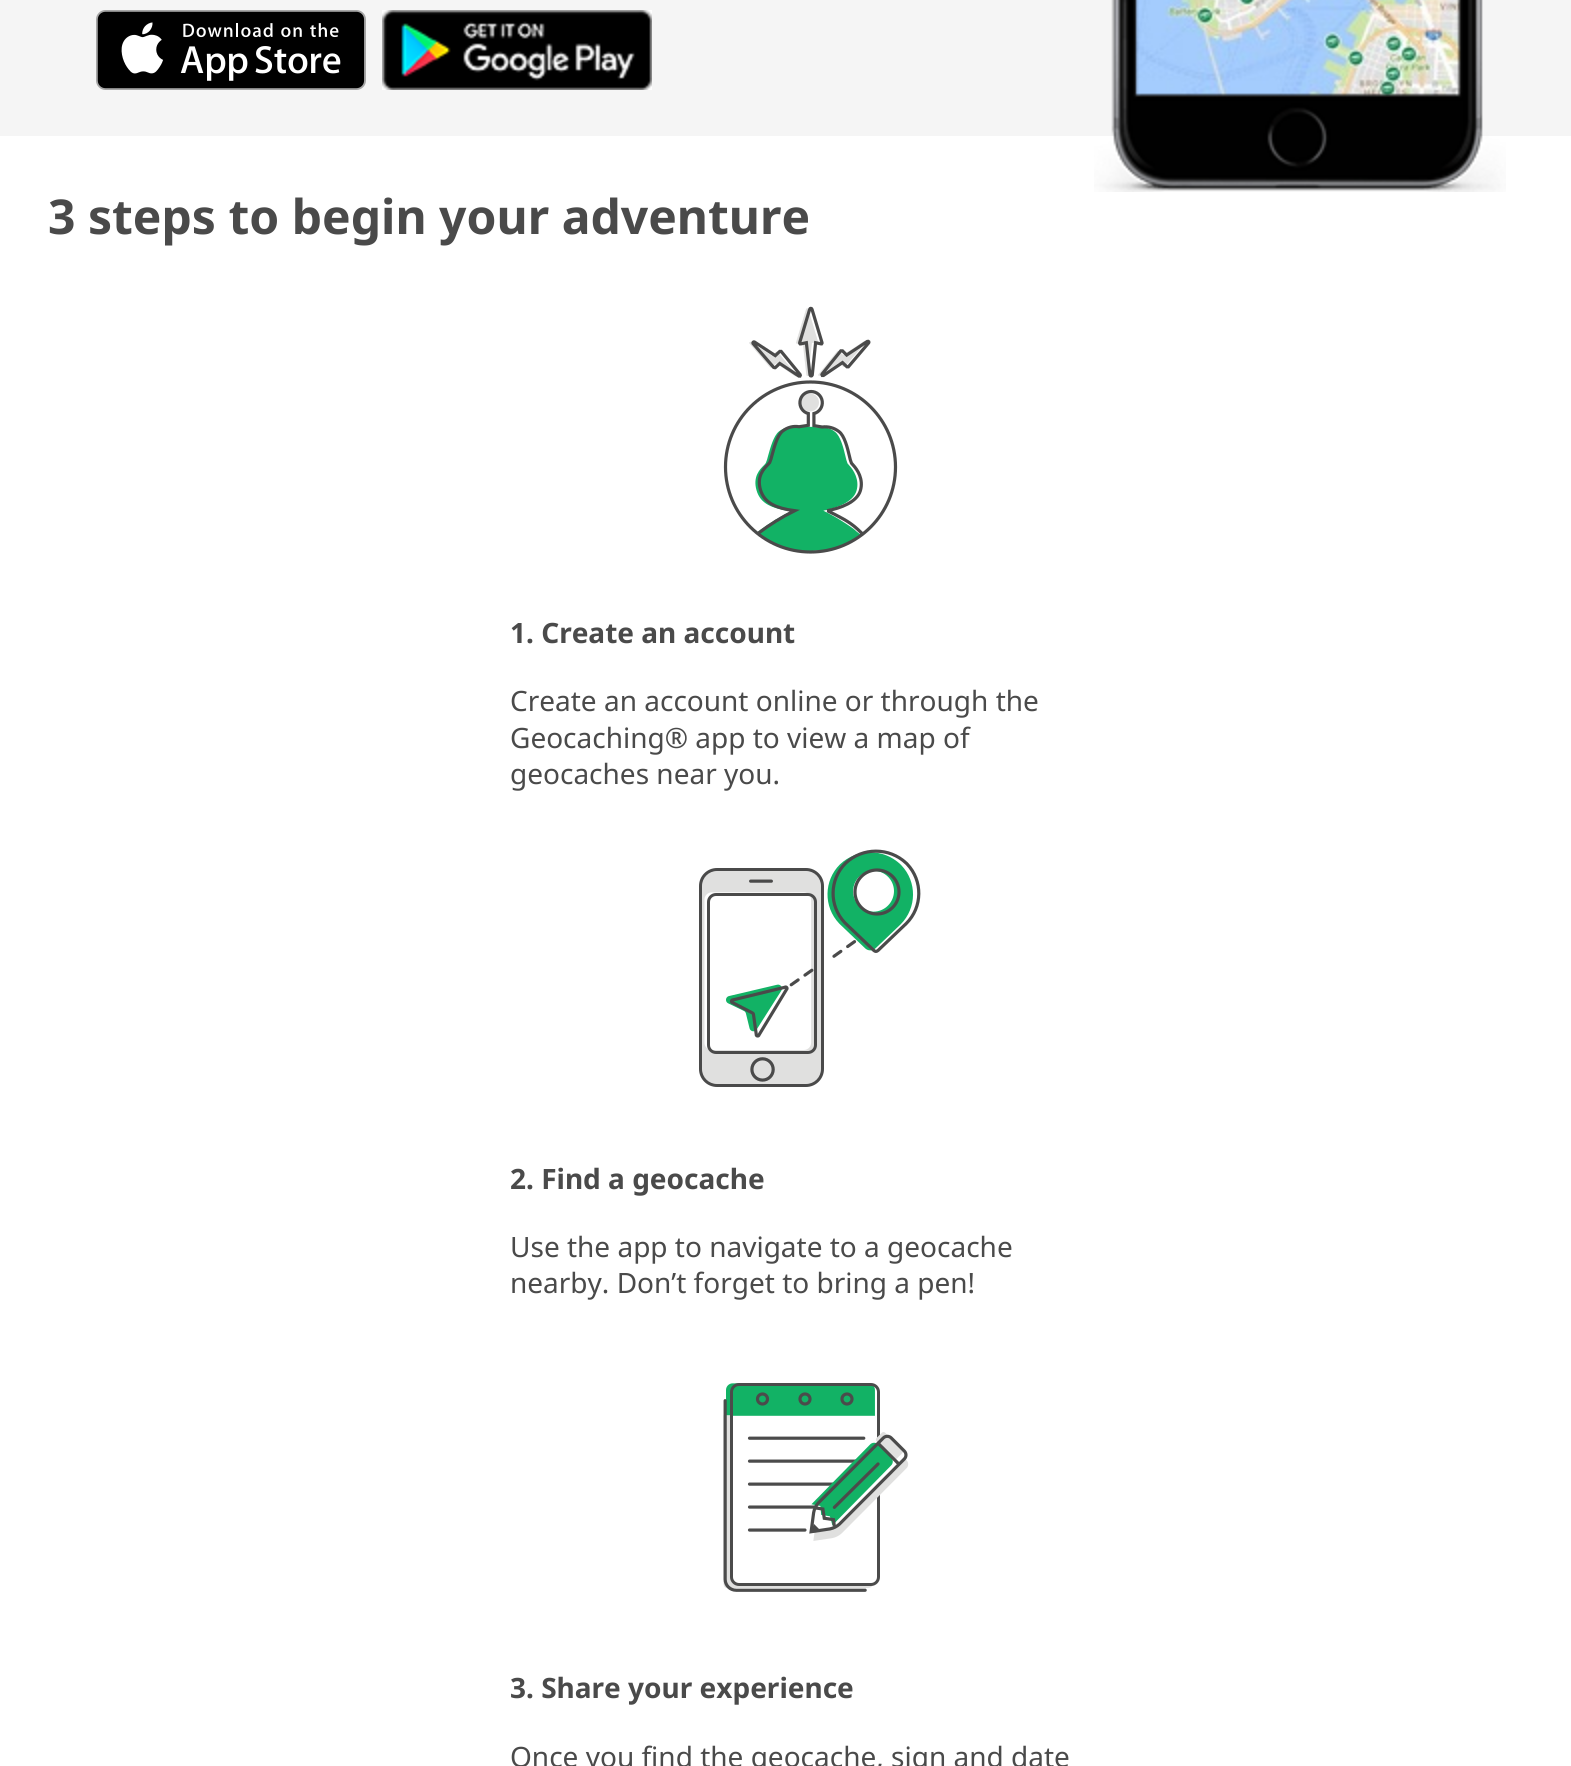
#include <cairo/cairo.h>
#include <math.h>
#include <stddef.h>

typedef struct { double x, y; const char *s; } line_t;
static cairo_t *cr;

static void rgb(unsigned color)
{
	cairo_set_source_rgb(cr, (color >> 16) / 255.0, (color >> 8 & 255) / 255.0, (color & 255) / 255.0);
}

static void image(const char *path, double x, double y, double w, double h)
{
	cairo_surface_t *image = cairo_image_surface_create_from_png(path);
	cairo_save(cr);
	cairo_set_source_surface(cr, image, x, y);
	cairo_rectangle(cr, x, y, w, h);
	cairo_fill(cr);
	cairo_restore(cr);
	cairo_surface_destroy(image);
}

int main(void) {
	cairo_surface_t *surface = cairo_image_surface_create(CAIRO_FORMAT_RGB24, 1571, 1766);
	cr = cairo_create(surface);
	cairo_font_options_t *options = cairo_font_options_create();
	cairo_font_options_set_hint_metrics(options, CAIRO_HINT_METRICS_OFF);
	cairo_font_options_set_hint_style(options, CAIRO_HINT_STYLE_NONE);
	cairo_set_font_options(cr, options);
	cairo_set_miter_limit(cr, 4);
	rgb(0xffffff);
	cairo_paint(cr);
	rgb(0xf5f5f5);
	cairo_rectangle(cr, 0, 0, 1571, 136);
	cairo_fill(cr);
	image("img/1.png", 96, 10, 270, 80);
	image("img/2.png", 382, 10, 270, 80);
	image("img/4.png", 1135, 0, 326, 96);
	image("img/3.png", 1094, 0, 412, 192);
	image("img/5.png", 723, 306, 175, 248);
	image("img/6.png", 699, 849, 222, 238);
	image("img/7.png", 723, 1383, 186, 209);
	cairo_select_font_face(cr, "Noto Sans", CAIRO_FONT_SLANT_NORMAL, CAIRO_FONT_WEIGHT_BOLD);
	cairo_set_font_size(cr, 48);
	rgb(0x4a4a4a);
	cairo_move_to(cr, 48, 234);
	cairo_show_text(cr, "3 steps to begin your adventure");
	cairo_set_font_size(cr, 28);
	cairo_move_to(cr, 510, 643);
	cairo_show_text(cr, "1. Create an account");
	cairo_select_font_face(cr, "Noto Sans", CAIRO_FONT_SLANT_NORMAL, CAIRO_FONT_WEIGHT_NORMAL);
	{
		static const line_t items[] = {
			{510, 711, "Create an account online or through the"},
			{510, 748, "Geocaching® app to view a map of"},
			{510, 784, "geocaches near you."},
		};
		for (size_t i = 0; i < sizeof items / sizeof *items; i++) {
			cairo_move_to(cr, items[i].x, items[i].y);
			cairo_show_text(cr, items[i].s);
		}
	}
	cairo_select_font_face(cr, "Noto Sans", CAIRO_FONT_SLANT_NORMAL, CAIRO_FONT_WEIGHT_BOLD);
	cairo_move_to(cr, 510, 1189);
	cairo_show_text(cr, "2. Find a geocache");
	cairo_select_font_face(cr, "Noto Sans", CAIRO_FONT_SLANT_NORMAL, CAIRO_FONT_WEIGHT_NORMAL);
	cairo_move_to(cr, 510, 1257);
	cairo_show_text(cr, "Use the app to navigate to a geocache");
	cairo_move_to(cr, 510, 1293);
	cairo_show_text(cr, "nearby. Don’t forget to bring a pen!");
	cairo_select_font_face(cr, "Noto Sans", CAIRO_FONT_SLANT_NORMAL, CAIRO_FONT_WEIGHT_BOLD);
	cairo_move_to(cr, 510, 1698);
	cairo_show_text(cr, "3. Share your experience");
	cairo_select_font_face(cr, "Noto Sans", CAIRO_FONT_SLANT_NORMAL, CAIRO_FONT_WEIGHT_NORMAL);
	cairo_move_to(cr, 510, 1767);
	cairo_show_text(cr, "Once you find the geocache, sign and date");
	cairo_surface_write_to_png(surface, "page.png");
	cairo_font_options_destroy(options);
	cairo_destroy(cr);
	cairo_surface_destroy(surface);
	return 0;
}
